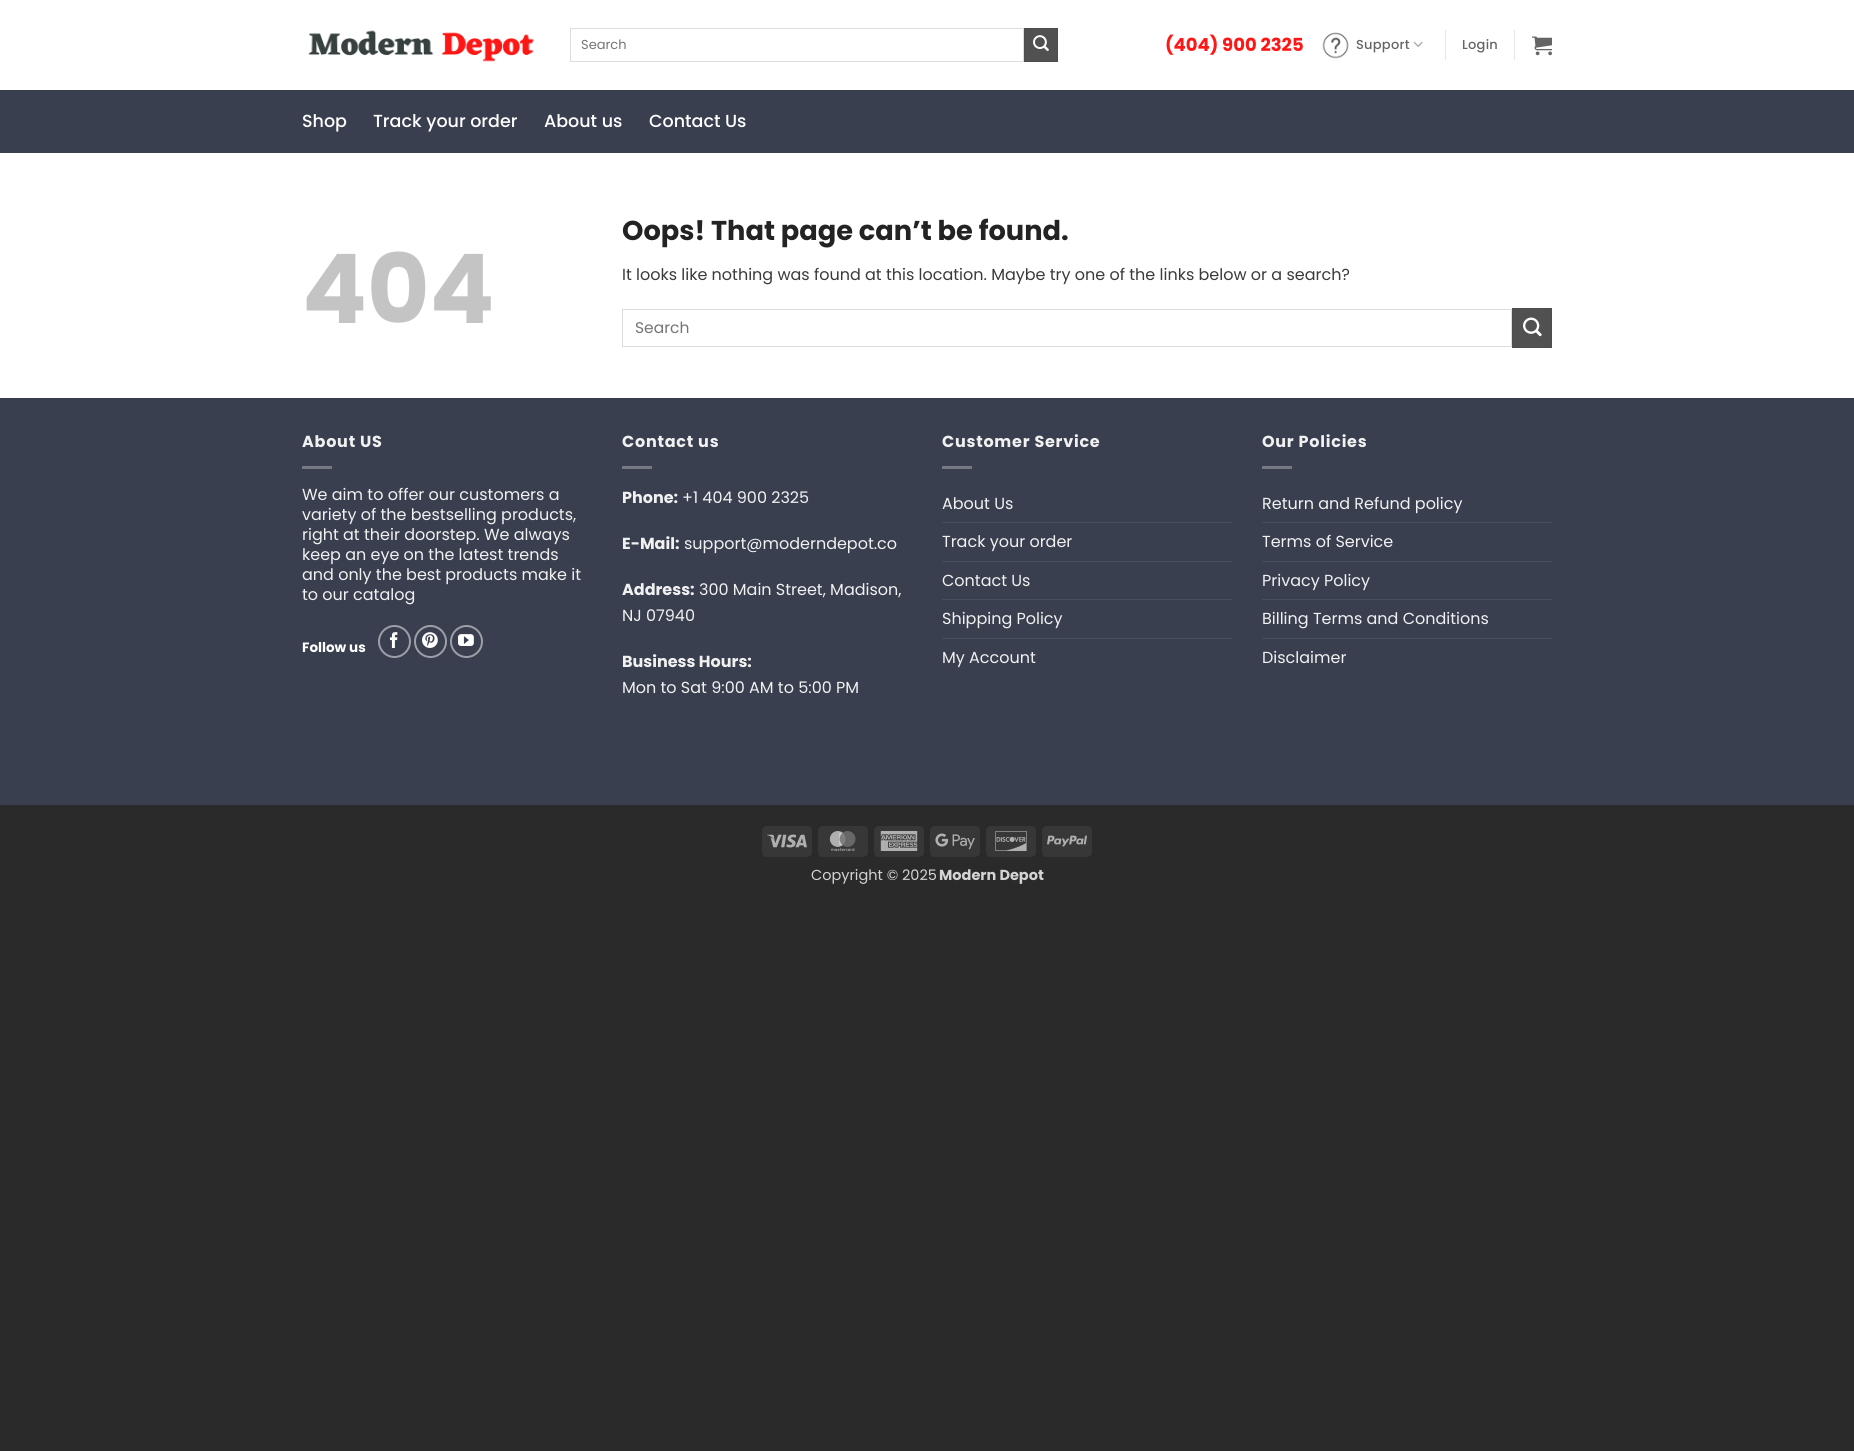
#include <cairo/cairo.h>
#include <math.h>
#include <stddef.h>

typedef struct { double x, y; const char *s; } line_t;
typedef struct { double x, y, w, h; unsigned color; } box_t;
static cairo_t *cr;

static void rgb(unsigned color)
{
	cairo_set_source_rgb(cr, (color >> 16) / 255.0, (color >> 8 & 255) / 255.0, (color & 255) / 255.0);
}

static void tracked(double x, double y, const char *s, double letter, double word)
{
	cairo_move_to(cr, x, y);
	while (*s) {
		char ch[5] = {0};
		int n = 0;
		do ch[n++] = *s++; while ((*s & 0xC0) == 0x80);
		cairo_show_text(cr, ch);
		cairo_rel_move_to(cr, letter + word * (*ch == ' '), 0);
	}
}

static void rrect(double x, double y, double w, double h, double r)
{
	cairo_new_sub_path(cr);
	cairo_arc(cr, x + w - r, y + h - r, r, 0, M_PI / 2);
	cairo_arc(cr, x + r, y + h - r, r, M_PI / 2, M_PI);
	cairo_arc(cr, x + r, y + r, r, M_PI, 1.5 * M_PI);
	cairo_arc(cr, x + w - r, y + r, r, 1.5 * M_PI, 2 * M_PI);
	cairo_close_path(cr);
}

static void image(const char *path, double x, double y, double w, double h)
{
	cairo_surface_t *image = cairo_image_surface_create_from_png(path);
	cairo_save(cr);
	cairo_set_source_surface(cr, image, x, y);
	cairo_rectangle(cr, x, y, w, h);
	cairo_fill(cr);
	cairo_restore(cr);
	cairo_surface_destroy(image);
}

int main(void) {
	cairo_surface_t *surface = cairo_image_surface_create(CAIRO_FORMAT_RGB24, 1854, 1451);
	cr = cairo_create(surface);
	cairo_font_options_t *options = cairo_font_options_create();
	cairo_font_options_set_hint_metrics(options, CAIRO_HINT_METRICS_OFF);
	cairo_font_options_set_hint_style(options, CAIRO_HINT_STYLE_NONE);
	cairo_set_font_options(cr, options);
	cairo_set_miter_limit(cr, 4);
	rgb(0x2a2a2a);
	cairo_paint(cr);
	rgb(0xffffff);
	cairo_rectangle(cr, 0, 0, 1854, 398);
	cairo_fill(cr);
	image("img/1.png", 308, 30, 226, 32);
	cairo_rectangle(cr, 570.5, 28.5, 453, 33);
	rgb(0xdddddd);
	cairo_set_line_width(cr, 1);
	cairo_stroke(cr);
	rgb(0x515151);
	cairo_rectangle(cr, 1024.5, 28.5, 33, 33);
	cairo_fill_preserve(cr);
	rgb(0x4d4d4d);
	cairo_stroke(cr);
	image("img/2.png", 1033, 35, 16, 16);
	image("img/3.png", 1322, 32, 27, 27);
	image("img/4.png", 1413, 41, 10, 6);
	rgb(0xe6e6e6);
	cairo_rectangle(cr, 1445, 30, 1, 30);
	cairo_fill(cr);
	cairo_rectangle(cr, 1514, 30, 1, 30);
	cairo_fill(cr);
	image("img/5.png", 1532, 36, 20, 20);
	rgb(0x393f4f);
	cairo_rectangle(cr, 0, 90, 1854, 63);
	cairo_fill(cr);
	cairo_rectangle(cr, 622.5, 309.5, 889, 37);
	rgb(0xdddddd);
	cairo_stroke(cr);
	rgb(0x515151);
	cairo_rectangle(cr, 1512.5, 308.5, 39, 39);
	cairo_fill_preserve(cr);
	rgb(0x4d4d4d);
	cairo_stroke(cr);
	image("img/6.png", 1523, 317, 19, 20);
	{
		static const box_t items[] = {
			{0, 399, 1854, 406, 0x393f4f},
			{0, 398, 1854, 1, 0x363c4b},
			{302, 466, 30, 3, 0x747984},
		};
		for (size_t i = 0; i < sizeof items / sizeof *items; i++) {
			rgb(items[i].color);
			cairo_rectangle(cr, items[i].x, items[i].y, items[i].w, items[i].h);
			cairo_fill(cr);
		}
	}
	cairo_arc(cr, 394.5, 641.5, 15.5, 0, 2 * M_PI);
	rgb(0x9c9fa7);
	cairo_set_line_width(cr, 2);
	cairo_stroke(cr);
	image("img/7.png", 389, 632, 9, 16);
	cairo_arc(cr, 430.5, 641.5, 15.5, 0, 2 * M_PI);
	cairo_stroke(cr);
	image("img/8.png", 422, 632, 16, 16);
	cairo_arc(cr, 466.5, 641.5, 15.5, 0, 2 * M_PI);
	cairo_stroke(cr);
	image("img/9.png", 458, 634, 16, 12);
	{
		static const box_t items[] = {
			{622, 466, 30, 3, 0x747984},
			{942, 466, 30, 3, 0x747984},
			{942, 522, 290, 1, 0x494e5d},
			{942, 561, 290, 1, 0x494e5d},
			{942, 599, 290, 1, 0x494e5d},
			{942, 638, 290, 1, 0x494e5d},
			{1262, 466, 30, 3, 0x747984},
			{1262, 522, 290, 1, 0x494e5d},
			{1262, 561, 290, 1, 0x494e5d},
			{1262, 599, 290, 1, 0x494e5d},
			{1262, 638, 290, 1, 0x494e5d},
		};
		for (size_t i = 0; i < sizeof items / sizeof *items; i++) {
			rgb(items[i].color);
			cairo_rectangle(cr, items[i].x, items[i].y, items[i].w, items[i].h);
			cairo_fill(cr);
		}
	}
	rgb(0x373737);
	rrect(762, 826, 50, 31, 5);
	cairo_fill(cr);
	image("img/10.png", 767, 834, 40, 14);
	rrect(818, 826, 50, 31, 5);
	cairo_fill(cr);
	image("img/11.png", 829, 831, 27, 20);
	rrect(874, 826, 50, 31, 5);
	cairo_fill(cr);
	image("img/12.png", 880, 831, 38, 20);
	rrect(930, 826, 50, 31, 5);
	cairo_fill(cr);
	image("img/13.png", 935, 833, 40, 17);
	rrect(986, 826, 50, 31, 5);
	cairo_fill(cr);
	image("img/14.png", 995, 831, 32, 20);
	rrect(1042, 826, 50, 31, 5);
	cairo_fill(cr);
	image("img/15.png", 1047, 835, 40, 12);
	cairo_select_font_face(cr, "Poppins", CAIRO_FONT_SLANT_NORMAL, CAIRO_FONT_WEIGHT_NORMAL);
	cairo_set_font_size(cr, 13);
	rgb(0x757575);
	cairo_move_to(cr, 581, 49);
	cairo_show_text(cr, "Search");
	cairo_select_font_face(cr, "Poppins", CAIRO_FONT_SLANT_NORMAL, CAIRO_FONT_WEIGHT_BOLD);
	cairo_set_font_size(cr, 18);
	rgb(0xff1615);
	cairo_move_to(cr, 1165, 51);
	cairo_show_text(cr, "(404) 900 2325");
	cairo_select_font_face(cr, "Poppins Medium", CAIRO_FONT_SLANT_NORMAL, CAIRO_FONT_WEIGHT_NORMAL);
	cairo_set_font_size(cr, 13);
	rgb(0x656565);
	tracked(1356, 49, "Support", 0.25, 0);
	tracked(1462, 49, "Login", 0.25, 0);
	cairo_set_font_size(cr, 17.5);
	rgb(0xffffff);
	{
		static const line_t items[] = {
			{302, 127, "Shop"},
			{373, 127, "Track your order"},
			{544, 127, "About us"},
			{649, 127, "Contact Us"},
		};
		for (size_t i = 0; i < sizeof items / sizeof *items; i++) {
			cairo_move_to(cr, items[i].x, items[i].y);
			cairo_show_text(cr, items[i].s);
		}
	}
	cairo_select_font_face(cr, "Poppins", CAIRO_FONT_SLANT_NORMAL, CAIRO_FONT_WEIGHT_BOLD);
	cairo_set_font_size(cr, 96);
	rgb(0xc4c4c4);
	cairo_move_to(cr, 302, 323);
	cairo_show_text(cr, "404");
	cairo_set_font_size(cr, 27.25);
	rgb(0x232323);
	cairo_move_to(cr, 622, 240);
	cairo_show_text(cr, "Oops! That page can’t be found.");
	cairo_select_font_face(cr, "Poppins", CAIRO_FONT_SLANT_NORMAL, CAIRO_FONT_WEIGHT_NORMAL);
	cairo_set_font_size(cr, 16);
	rgb(0x3a3a3a);
	cairo_move_to(cr, 622, 280);
	cairo_show_text(cr, "It looks like nothing was found at this location. Maybe try one of the links below or a search?");
	cairo_set_font_size(cr, 15.5);
	rgb(0x757575);
	cairo_move_to(cr, 635, 333);
	cairo_show_text(cr, "Search");
	cairo_select_font_face(cr, "Poppins", CAIRO_FONT_SLANT_NORMAL, CAIRO_FONT_WEIGHT_BOLD);
	cairo_set_font_size(cr, 16);
	rgb(0xf1f1f1);
	tracked(302, 447, "About US", 0.75, 0);
	cairo_select_font_face(cr, "Poppins", CAIRO_FONT_SLANT_NORMAL, CAIRO_FONT_WEIGHT_NORMAL);
	{
		static const line_t items[] = {
			{302, 500, "We aim to offer our customers a"},
			{302, 520, "variety of the bestselling products,"},
			{302, 540, "right at their doorstep. We always"},
			{302, 560, "keep an eye on the latest trends"},
			{302, 580, "and only the best products make it"},
			{302, 600, "to our catalog"},
		};
		for (size_t i = 0; i < sizeof items / sizeof *items; i++) {
			cairo_move_to(cr, items[i].x, items[i].y);
			cairo_show_text(cr, items[i].s);
		}
	}
	cairo_select_font_face(cr, "Poppins", CAIRO_FONT_SLANT_NORMAL, CAIRO_FONT_WEIGHT_BOLD);
	cairo_set_font_size(cr, 13.5);
	rgb(0xffffff);
	cairo_move_to(cr, 302, 652);
	cairo_show_text(cr, "Follow us");
	cairo_set_font_size(cr, 16);
	rgb(0xf1f1f1);
	tracked(622, 447, "Contact us", 0.75, 0);
	cairo_move_to(cr, 622, 503);
	cairo_show_text(cr, "Phone:");
	cairo_select_font_face(cr, "Poppins", CAIRO_FONT_SLANT_NORMAL, CAIRO_FONT_WEIGHT_NORMAL);
	cairo_move_to(cr, 682, 503);
	cairo_show_text(cr, "+1 404 900 2325");
	cairo_select_font_face(cr, "Poppins", CAIRO_FONT_SLANT_NORMAL, CAIRO_FONT_WEIGHT_BOLD);
	cairo_move_to(cr, 622, 549);
	cairo_show_text(cr, "E-Mail:");
	cairo_select_font_face(cr, "Poppins", CAIRO_FONT_SLANT_NORMAL, CAIRO_FONT_WEIGHT_NORMAL);
	cairo_move_to(cr, 684, 549);
	cairo_show_text(cr, "support@moderndepot.co");
	cairo_select_font_face(cr, "Poppins", CAIRO_FONT_SLANT_NORMAL, CAIRO_FONT_WEIGHT_BOLD);
	cairo_move_to(cr, 622, 595);
	cairo_show_text(cr, "Address:");
	cairo_select_font_face(cr, "Poppins", CAIRO_FONT_SLANT_NORMAL, CAIRO_FONT_WEIGHT_NORMAL);
	cairo_move_to(cr, 699, 595);
	cairo_show_text(cr, "300 Main Street, Madison,");
	cairo_move_to(cr, 622, 621);
	cairo_show_text(cr, "NJ 07940");
	cairo_select_font_face(cr, "Poppins", CAIRO_FONT_SLANT_NORMAL, CAIRO_FONT_WEIGHT_BOLD);
	cairo_move_to(cr, 622, 667);
	cairo_show_text(cr, "Business Hours:");
	cairo_select_font_face(cr, "Poppins", CAIRO_FONT_SLANT_NORMAL, CAIRO_FONT_WEIGHT_NORMAL);
	cairo_move_to(cr, 622, 693);
	cairo_show_text(cr, "Mon to Sat 9:00 AM to 5:00 PM");
	cairo_select_font_face(cr, "Poppins", CAIRO_FONT_SLANT_NORMAL, CAIRO_FONT_WEIGHT_BOLD);
	tracked(942, 447, "Customer Service", 0.75, 0);
	cairo_select_font_face(cr, "Poppins", CAIRO_FONT_SLANT_NORMAL, CAIRO_FONT_WEIGHT_NORMAL);
	{
		static const line_t items[] = {
			{942, 509, "About Us"},
			{942, 547, "Track your order"},
			{942, 586, "Contact Us"},
			{942, 624, "Shipping Policy"},
			{942, 663, "My Account"},
		};
		for (size_t i = 0; i < sizeof items / sizeof *items; i++) {
			cairo_move_to(cr, items[i].x, items[i].y);
			cairo_show_text(cr, items[i].s);
		}
	}
	cairo_select_font_face(cr, "Poppins", CAIRO_FONT_SLANT_NORMAL, CAIRO_FONT_WEIGHT_BOLD);
	tracked(1262, 447, "Our Policies", 0.75, 0);
	cairo_select_font_face(cr, "Poppins", CAIRO_FONT_SLANT_NORMAL, CAIRO_FONT_WEIGHT_NORMAL);
	{
		static const line_t items[] = {
			{1262, 509, "Return and Refund policy"},
			{1262, 547, "Terms of Service"},
			{1262, 586, "Privacy Policy"},
			{1262, 624, "Billing Terms and Conditions"},
			{1262, 663, "Disclaimer"},
		};
		for (size_t i = 0; i < sizeof items / sizeof *items; i++) {
			cairo_move_to(cr, items[i].x, items[i].y);
			cairo_show_text(cr, items[i].s);
		}
	}
	cairo_set_font_size(cr, 14.5);
	rgb(0xd4d4d4);
	cairo_move_to(cr, 811, 880);
	cairo_show_text(cr, "Copyright © 2025");
	cairo_select_font_face(cr, "Poppins", CAIRO_FONT_SLANT_NORMAL, CAIRO_FONT_WEIGHT_BOLD);
	cairo_move_to(cr, 939, 880);
	cairo_show_text(cr, "Modern Depot");
	cairo_surface_write_to_png(surface, "page.png");
	cairo_font_options_destroy(options);
	cairo_destroy(cr);
	cairo_surface_destroy(surface);
	return 0;
}
